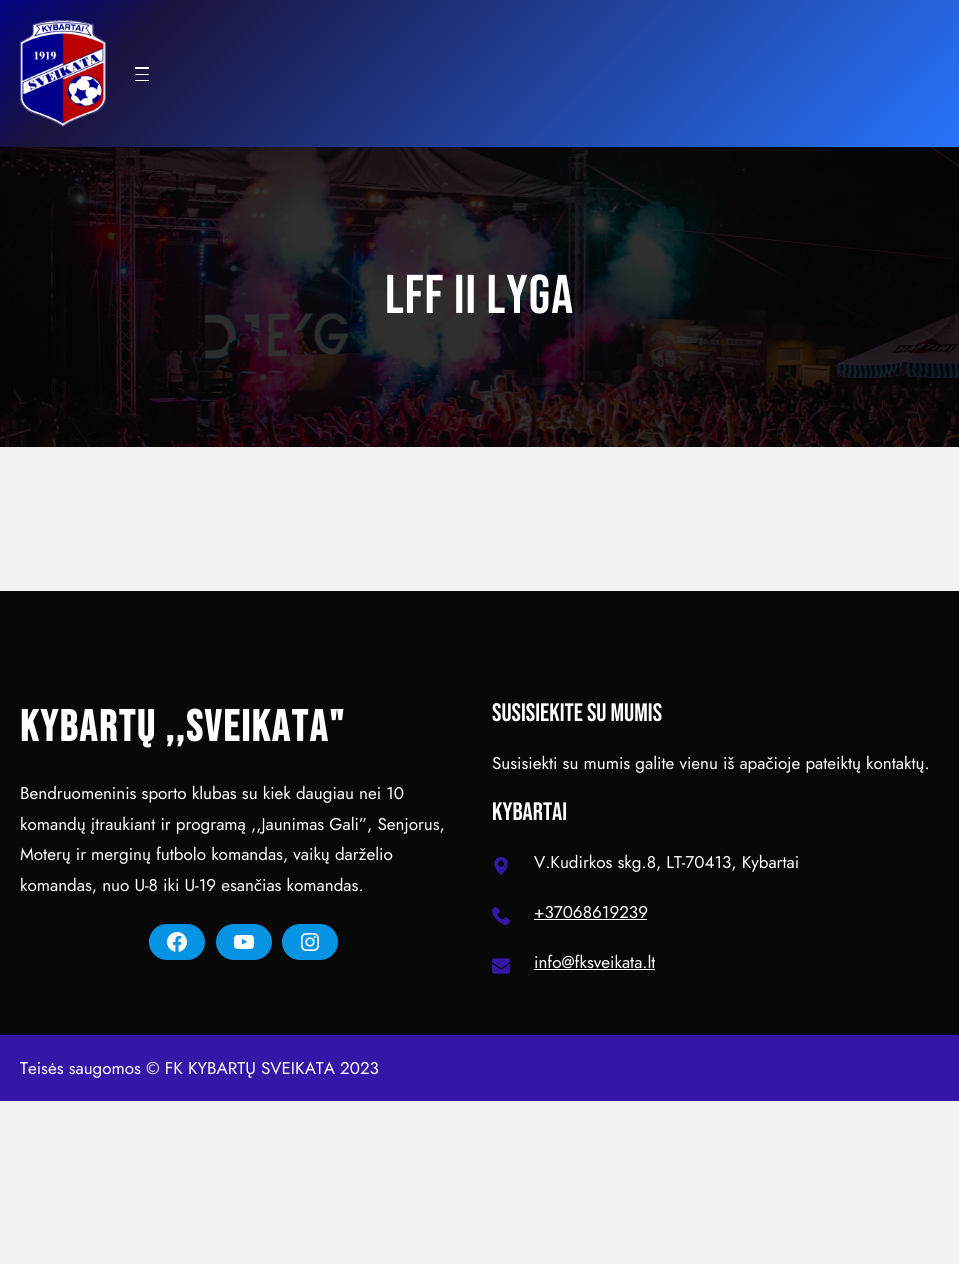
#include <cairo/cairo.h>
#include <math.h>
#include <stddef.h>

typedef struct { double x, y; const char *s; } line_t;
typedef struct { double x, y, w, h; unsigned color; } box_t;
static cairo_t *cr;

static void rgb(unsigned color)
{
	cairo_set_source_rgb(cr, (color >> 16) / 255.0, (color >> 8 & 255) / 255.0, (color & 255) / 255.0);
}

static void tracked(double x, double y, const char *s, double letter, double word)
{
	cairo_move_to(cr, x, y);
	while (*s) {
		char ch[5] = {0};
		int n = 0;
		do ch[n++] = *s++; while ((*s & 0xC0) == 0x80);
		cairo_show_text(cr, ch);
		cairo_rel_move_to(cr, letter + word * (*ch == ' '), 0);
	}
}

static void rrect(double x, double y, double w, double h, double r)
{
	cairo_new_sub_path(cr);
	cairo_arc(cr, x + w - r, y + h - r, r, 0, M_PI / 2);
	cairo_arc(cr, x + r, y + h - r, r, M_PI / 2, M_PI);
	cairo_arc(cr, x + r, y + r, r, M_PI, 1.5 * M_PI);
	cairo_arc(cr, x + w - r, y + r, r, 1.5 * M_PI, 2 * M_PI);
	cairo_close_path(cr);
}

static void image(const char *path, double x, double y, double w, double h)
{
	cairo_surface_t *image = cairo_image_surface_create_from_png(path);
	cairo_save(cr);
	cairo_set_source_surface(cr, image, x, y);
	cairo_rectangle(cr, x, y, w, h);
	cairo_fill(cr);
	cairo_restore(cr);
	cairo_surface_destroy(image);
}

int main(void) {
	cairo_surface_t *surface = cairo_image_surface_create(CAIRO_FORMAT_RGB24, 959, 1264);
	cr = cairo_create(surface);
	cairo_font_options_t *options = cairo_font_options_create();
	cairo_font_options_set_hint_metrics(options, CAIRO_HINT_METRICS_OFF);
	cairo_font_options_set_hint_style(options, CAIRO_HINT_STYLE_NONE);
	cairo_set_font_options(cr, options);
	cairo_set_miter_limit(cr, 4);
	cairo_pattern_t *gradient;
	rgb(0xf2f2f2);
	cairo_paint(cr);
	gradient = cairo_pattern_create_linear(203, -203, 756, 350);
	cairo_pattern_add_color_stop_rgba(gradient, 0, 0.008, 0.012, 0.506, 1);
	cairo_pattern_add_color_stop_rgba(gradient, 0.16, 0.102, 0.075, 0.243, 1);
	cairo_pattern_add_color_stop_rgba(gradient, 1, 0.157, 0.455, 0.988, 1);
	cairo_set_source(cr, gradient);
	cairo_pattern_destroy(gradient);
	cairo_rectangle(cr, 0, 0, 959, 147);
	cairo_fill(cr);
	image("img/1.png", 20, 20, 86, 107);
	{
		static const box_t items[] = {
			{135, 67, 14, 2, 0xffffff},
			{135, 74, 14, 1, 0xffffff},
			{135, 80, 14, 1, 0xffffff},
		};
		for (size_t i = 0; i < sizeof items / sizeof *items; i++) {
			rgb(items[i].color);
			cairo_rectangle(cr, items[i].x, items[i].y, items[i].w, items[i].h);
			cairo_fill(cr);
		}
	}
	image("img/2.png", 0, 147, 959, 300);
	rgb(0x080808);
	cairo_rectangle(cr, 0, 591, 959, 444);
	cairo_fill(cr);
	rgb(0x0693e3);
	rrect(149, 924, 56, 36, 18);
	cairo_fill(cr);
	image("img/3.png", 167, 932, 20, 20);
	rrect(216, 924, 56, 36, 18);
	cairo_fill(cr);
	image("img/4.png", 234, 935, 20, 14);
	rrect(282, 924, 56, 36, 18);
	cairo_fill(cr);
	image("img/5.png", 301, 933, 18, 18);
	image("img/6.png", 494, 857, 14, 18);
	image("img/7.png", 492, 907, 18, 18);
	rgb(0xffffff);
	cairo_rectangle(cr, 534, 919, 113, 1);
	cairo_fill(cr);
	image("img/8.png", 492, 958, 18, 16);
	cairo_rectangle(cr, 534, 969, 121, 1);
	cairo_fill(cr);
	rgb(0x3417a6);
	cairo_rectangle(cr, 0, 1035, 959, 66);
	cairo_fill(cr);
	cairo_select_font_face(cr, "Bebas Neue", CAIRO_FONT_SLANT_NORMAL, CAIRO_FONT_WEIGHT_NORMAL);
	cairo_set_font_size(cr, 54.5);
	rgb(0xffffff);
	tracked(385, 313, "LFF II LYGA", 1, 0);
	cairo_select_font_face(cr, "Bebas Neue", CAIRO_FONT_SLANT_NORMAL, CAIRO_FONT_WEIGHT_BOLD);
	cairo_set_font_size(cr, 44);
	tracked(20, 741, "Kybartų ,,Sveikata\"", 2, 0);
	cairo_select_font_face(cr, "Jost", CAIRO_FONT_SLANT_NORMAL, CAIRO_FONT_WEIGHT_NORMAL);
	cairo_set_font_size(cr, 17);
	{
		static const line_t items[] = {
			{20, 799, "Bendruomeninis sporto klubas su kiek daugiau nei 10"},
			{20, 830, "komandų įtraukiant ir programą ,,Jaunimas Gali”, Senjorus,"},
			{20, 860, "Moterų ir merginų futbolo komandas, vaikų darželio"},
			{20, 891, "komandas, nuo U-8 iki U-19 esančias komandas."},
		};
		for (size_t i = 0; i < sizeof items / sizeof *items; i++) {
			cairo_move_to(cr, items[i].x, items[i].y);
			cairo_show_text(cr, items[i].s);
		}
	}
	cairo_select_font_face(cr, "Bebas Neue", CAIRO_FONT_SLANT_NORMAL, CAIRO_FONT_WEIGHT_NORMAL);
	cairo_set_font_size(cr, 25.25);
	cairo_move_to(cr, 492, 721);
	cairo_show_text(cr, "SUSISIEKITE SU MUMIS");
	cairo_select_font_face(cr, "Jost", CAIRO_FONT_SLANT_NORMAL, CAIRO_FONT_WEIGHT_NORMAL);
	cairo_set_font_size(cr, 17);
	cairo_move_to(cr, 492, 769);
	cairo_show_text(cr, "Susisiekti su mumis galite vienu iš apačioje pateiktų kontaktų.");
	cairo_select_font_face(cr, "Bebas Neue", CAIRO_FONT_SLANT_NORMAL, CAIRO_FONT_WEIGHT_NORMAL);
	cairo_set_font_size(cr, 25.25);
	cairo_move_to(cr, 492, 820);
	cairo_show_text(cr, "KYBARTAI");
	cairo_select_font_face(cr, "Jost", CAIRO_FONT_SLANT_NORMAL, CAIRO_FONT_WEIGHT_NORMAL);
	cairo_set_font_size(cr, 17);
	{
		static const line_t items[] = {
			{534, 868, "V.Kudirkos skg.8, LT-70413, Kybartai"},
			{534, 918, "+37068619239"},
			{534, 968, "info@fksveikata.lt"},
			{20, 1074, "Teisės saugomos © FK KYBARTŲ SVEIKATA 2023"},
		};
		for (size_t i = 0; i < sizeof items / sizeof *items; i++) {
			cairo_move_to(cr, items[i].x, items[i].y);
			cairo_show_text(cr, items[i].s);
		}
	}
	cairo_surface_write_to_png(surface, "page.png");
	cairo_font_options_destroy(options);
	cairo_destroy(cr);
	cairo_surface_destroy(surface);
	return 0;
}
